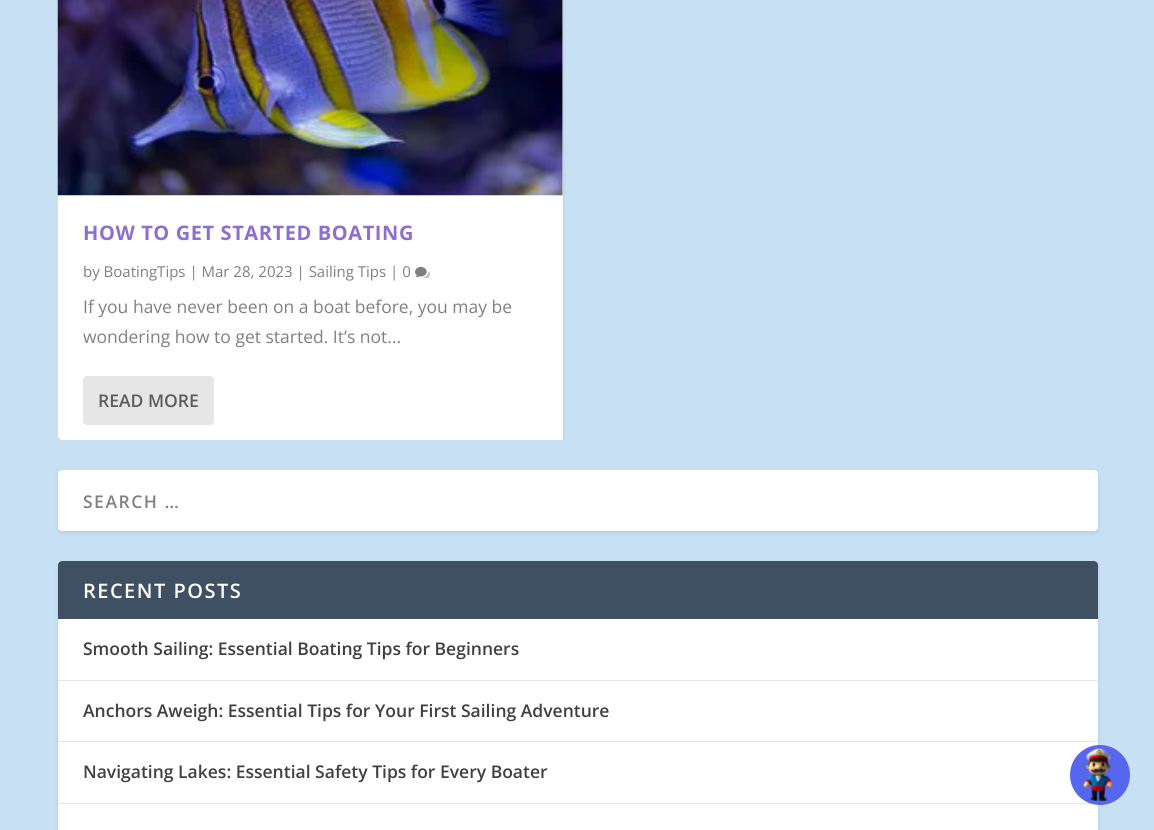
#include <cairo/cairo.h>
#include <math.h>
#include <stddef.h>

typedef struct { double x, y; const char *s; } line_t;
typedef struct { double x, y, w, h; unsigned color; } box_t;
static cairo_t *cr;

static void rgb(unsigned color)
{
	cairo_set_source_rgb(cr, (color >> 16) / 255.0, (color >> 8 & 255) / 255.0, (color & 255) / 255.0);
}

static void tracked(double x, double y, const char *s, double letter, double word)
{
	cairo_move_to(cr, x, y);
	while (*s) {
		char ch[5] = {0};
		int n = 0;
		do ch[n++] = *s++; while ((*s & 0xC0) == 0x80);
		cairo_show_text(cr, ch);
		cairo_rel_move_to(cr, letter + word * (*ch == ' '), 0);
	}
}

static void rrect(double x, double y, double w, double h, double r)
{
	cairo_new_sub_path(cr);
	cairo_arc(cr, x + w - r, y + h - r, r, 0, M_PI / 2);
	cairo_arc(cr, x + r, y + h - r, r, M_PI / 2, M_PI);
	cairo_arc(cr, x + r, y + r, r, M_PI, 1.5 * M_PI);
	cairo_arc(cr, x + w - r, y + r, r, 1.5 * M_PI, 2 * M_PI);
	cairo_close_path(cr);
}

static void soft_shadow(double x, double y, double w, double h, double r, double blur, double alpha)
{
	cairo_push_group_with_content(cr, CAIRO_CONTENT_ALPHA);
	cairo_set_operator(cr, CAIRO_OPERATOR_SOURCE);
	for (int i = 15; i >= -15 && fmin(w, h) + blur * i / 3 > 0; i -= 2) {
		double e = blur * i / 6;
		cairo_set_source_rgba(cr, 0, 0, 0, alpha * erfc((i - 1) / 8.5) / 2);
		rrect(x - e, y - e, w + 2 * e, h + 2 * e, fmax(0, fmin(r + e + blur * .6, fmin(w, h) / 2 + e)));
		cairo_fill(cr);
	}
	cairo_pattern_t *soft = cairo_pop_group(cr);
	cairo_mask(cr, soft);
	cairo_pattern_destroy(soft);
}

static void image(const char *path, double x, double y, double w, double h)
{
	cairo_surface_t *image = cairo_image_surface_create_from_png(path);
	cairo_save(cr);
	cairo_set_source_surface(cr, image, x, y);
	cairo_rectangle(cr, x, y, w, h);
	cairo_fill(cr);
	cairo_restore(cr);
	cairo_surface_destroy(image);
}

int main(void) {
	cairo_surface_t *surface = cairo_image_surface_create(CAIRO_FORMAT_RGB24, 1154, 830);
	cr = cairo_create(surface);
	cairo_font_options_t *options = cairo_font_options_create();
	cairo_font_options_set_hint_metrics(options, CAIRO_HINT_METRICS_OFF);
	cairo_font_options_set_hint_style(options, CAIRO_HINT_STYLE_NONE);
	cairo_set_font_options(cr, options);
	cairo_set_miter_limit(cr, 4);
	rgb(0xc8e0f4);
	cairo_paint(cr);
	cairo_save(cr);
	rrect(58, -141, 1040, 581, 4);
	cairo_clip(cr);
	rgb(0x000000);
	soft_shadow(58, -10, 505, 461, 4, 2, 0.1);
	cairo_restore(cr);
	rgb(0xffffff);
	cairo_new_path(cr);
	cairo_move_to(cr, 62, -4);
	cairo_line_to(cr, 559, -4);
	cairo_curve_to(cr, 561, -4, 563, -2, 563, 0);
	cairo_line_to(cr, 563, 440);
	cairo_line_to(cr, 62, 440);
	cairo_curve_to(cr, 60, 440, 58, 438, 58, 436);
	cairo_line_to(cr, 58, 0);
	cairo_curve_to(cr, 58, -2, 60, -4, 62, -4);
	cairo_close_path(cr);
	cairo_fill(cr);
	image("img/1.png", 57, 0, 506, 196);
	image("img/2.png", 415, 267, 15, 12);
	rgb(0xe6e6e6);
	rrect(83, 376, 131, 49, 4);
	cairo_fill(cr);
	rgb(0x000000);
	soft_shadow(58, 471, 1040, 62, 4, 2, 0.1);
	rgb(0xffffff);
	rrect(58, 470, 1040, 61, 4);
	cairo_fill(cr);
	rgb(0x000000);
	soft_shadow(58, 563, 1040, 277, 4, 2, 0.1);
	rgb(0xffffff);
	rrect(58, 561, 1040, 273, 4);
	cairo_fill(cr);
	rgb(0x3e5062);
	cairo_new_path(cr);
	cairo_move_to(cr, 62, 561);
	cairo_line_to(cr, 1094, 561);
	cairo_curve_to(cr, 1096, 561, 1098, 563, 1098, 565);
	cairo_line_to(cr, 1098, 619);
	cairo_line_to(cr, 58, 619);
	cairo_line_to(cr, 58, 565);
	cairo_curve_to(cr, 58, 563, 60, 561, 62, 561);
	cairo_close_path(cr);
	cairo_fill(cr);
	{
		static const box_t items[] = {
			{58, 680, 1040, 1, 0xe6e6e6},
			{58, 741, 1040, 1, 0xe6e6e6},
			{58, 803, 1040, 1, 0xe6e6e6},
		};
		for (size_t i = 0; i < sizeof items / sizeof *items; i++) {
			rgb(items[i].color);
			cairo_rectangle(cr, items[i].x, items[i].y, items[i].w, items[i].h);
			cairo_fill(cr);
		}
	}
	rgb(0x5666ee);
	cairo_arc(cr, 1100, 775, 30, 0, 2 * M_PI);
	cairo_fill(cr);
	image("img/3.png", 1083, 748, 31, 54);
	cairo_select_font_face(cr, "Open Sans", CAIRO_FONT_SLANT_NORMAL, CAIRO_FONT_WEIGHT_BOLD);
	cairo_set_font_size(cr, 20);
	rgb(0x8e6ecf);
	tracked(83, 240, "HOW TO GET STARTED BOATING", 0.6, 0);
	cairo_select_font_face(cr, "Open Sans", CAIRO_FONT_SLANT_NORMAL, CAIRO_FONT_WEIGHT_NORMAL);
	cairo_set_font_size(cr, 15);
	rgb(0x808080);
	cairo_move_to(cr, 83, 277);
	cairo_show_text(cr, "by BoatingTips | Mar 28, 2023 | Sailing Tips | 0");
	cairo_set_font_size(cr, 17.5);
	cairo_move_to(cr, 83, 313);
	cairo_show_text(cr, "If you have never been on a boat before, you may be");
	cairo_move_to(cr, 83, 343);
	cairo_show_text(cr, "wondering how to get started. It’s not...");
	cairo_select_font_face(cr, "Open Sans SemiBold", CAIRO_FONT_SLANT_NORMAL, CAIRO_FONT_WEIGHT_NORMAL);
	rgb(0x5c5c5c);
	cairo_move_to(cr, 98, 407);
	cairo_show_text(cr, "READ MORE");
	rgb(0x808080);
	tracked(83, 508, "SEARCH …", 1.5, 0);
	cairo_set_font_size(cr, 20);
	rgb(0xffffff);
	tracked(83, 598, "RECENT POSTS", 1.5, 0);
	cairo_set_font_size(cr, 17.5);
	rgb(0x404040);
	{
		static const line_t items[] = {
			{83, 655, "Smooth Sailing: Essential Boating Tips for Beginners"},
			{83, 717, "Anchors Aweigh: Essential Tips for Your First Sailing Adventure"},
			{83, 778, "Navigating Lakes: Essential Safety Tips for Every Boater"},
		};
		for (size_t i = 0; i < sizeof items / sizeof *items; i++) {
			cairo_move_to(cr, items[i].x, items[i].y);
			cairo_show_text(cr, items[i].s);
		}
	}
	cairo_surface_write_to_png(surface, "page.png");
	cairo_font_options_destroy(options);
	cairo_destroy(cr);
	cairo_surface_destroy(surface);
	return 0;
}
